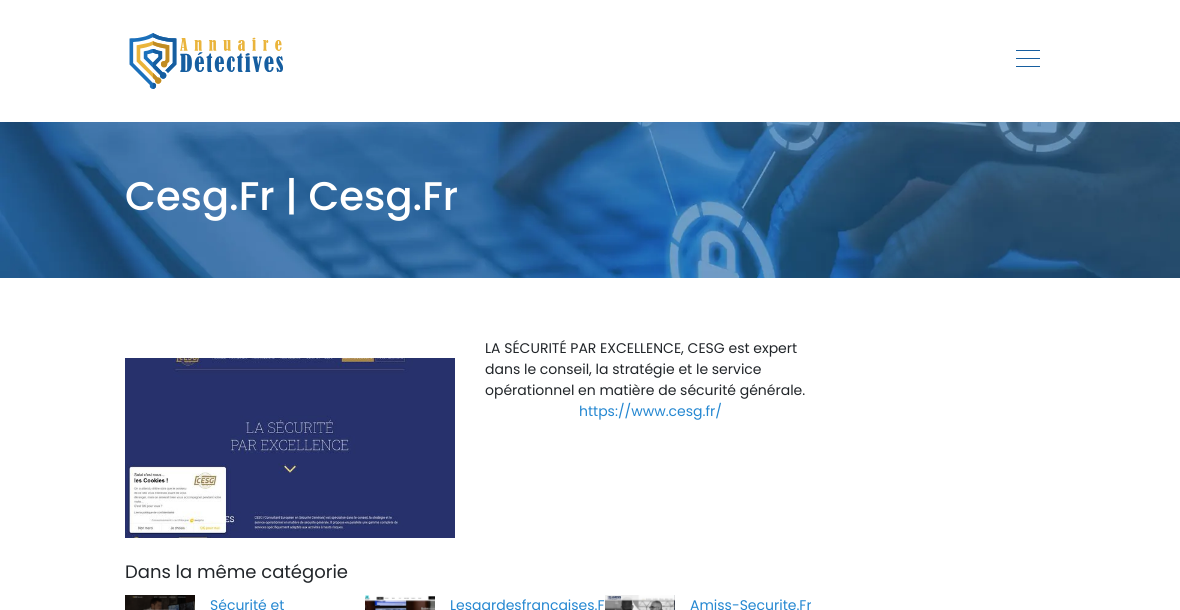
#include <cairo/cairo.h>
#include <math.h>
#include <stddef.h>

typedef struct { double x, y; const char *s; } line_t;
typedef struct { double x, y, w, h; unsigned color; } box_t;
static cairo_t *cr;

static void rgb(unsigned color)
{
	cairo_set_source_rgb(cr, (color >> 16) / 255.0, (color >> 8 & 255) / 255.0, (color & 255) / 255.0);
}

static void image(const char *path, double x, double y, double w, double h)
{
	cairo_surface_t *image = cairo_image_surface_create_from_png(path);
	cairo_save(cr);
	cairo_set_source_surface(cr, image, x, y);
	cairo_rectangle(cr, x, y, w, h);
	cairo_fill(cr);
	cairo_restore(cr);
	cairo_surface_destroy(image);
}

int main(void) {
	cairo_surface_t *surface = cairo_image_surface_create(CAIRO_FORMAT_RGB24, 1180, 610);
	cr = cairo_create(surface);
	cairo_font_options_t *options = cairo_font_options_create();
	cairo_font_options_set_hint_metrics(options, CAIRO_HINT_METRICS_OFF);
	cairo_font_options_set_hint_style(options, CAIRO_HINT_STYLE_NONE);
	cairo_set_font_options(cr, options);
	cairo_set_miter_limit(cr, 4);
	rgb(0xffffff);
	cairo_paint(cr);
	image("img/1.png", 129, 33, 154, 56);
	{
		static const box_t items[] = {
			{1016, 50, 24, 1, 0x165ea0},
			{1016, 58, 24, 1, 0x165ea0},
			{1016, 66, 24, 1, 0x165ea0},
		};
		for (size_t i = 0; i < sizeof items / sizeof *items; i++) {
			rgb(items[i].color);
			cairo_rectangle(cr, items[i].x, items[i].y, items[i].w, items[i].h);
			cairo_fill(cr);
		}
	}
	image("img/2.png", 0, 122, 1180, 156);
	image("img/3.png", 125, 358, 330, 180);
	image("img/4.png", 125, 595, 70, 15);
	image("img/5.png", 365, 595, 70, 15);
	image("img/6.png", 605, 595, 70, 15);
	cairo_select_font_face(cr, "Poppins Medium", CAIRO_FONT_SLANT_NORMAL, CAIRO_FONT_WEIGHT_NORMAL);
	cairo_set_font_size(cr, 40);
	rgb(0xffffff);
	cairo_move_to(cr, 125, 210);
	cairo_show_text(cr, "Cesg.Fr | Cesg.Fr");
	cairo_select_font_face(cr, "Poppins", CAIRO_FONT_SLANT_NORMAL, CAIRO_FONT_WEIGHT_NORMAL);
	cairo_set_font_size(cr, 14);
	rgb(0x212529);
	{
		static const line_t items[] = {
			{485, 353, "LA SÉCURITÉ PAR EXCELLENCE, CESG est expert"},
			{485, 374, "dans le conseil, la stratégie et le service"},
			{485, 395, "opérationnel en matière de sécurité générale."},
		};
		for (size_t i = 0; i < sizeof items / sizeof *items; i++) {
			cairo_move_to(cr, items[i].x, items[i].y);
			cairo_show_text(cr, items[i].s);
		}
	}
	rgb(0x2487d1);
	cairo_move_to(cr, 579, 416);
	cairo_show_text(cr, "https://www.cesg.fr/");
	cairo_set_font_size(cr, 18);
	rgb(0x212529);
	cairo_move_to(cr, 125, 578);
	cairo_show_text(cr, "Dans la même catégorie");
	cairo_set_font_size(cr, 14);
	rgb(0x2487d1);
	{
		static const line_t items[] = {
			{210, 610, "Sécurité et"},
			{450, 610, "Lesgardesfrancaises.F"},
			{690, 610, "Amiss-Securite.Fr"},
		};
		for (size_t i = 0; i < sizeof items / sizeof *items; i++) {
			cairo_move_to(cr, items[i].x, items[i].y);
			cairo_show_text(cr, items[i].s);
		}
	}
	cairo_surface_write_to_png(surface, "page.png");
	cairo_font_options_destroy(options);
	cairo_destroy(cr);
	cairo_surface_destroy(surface);
	return 0;
}
